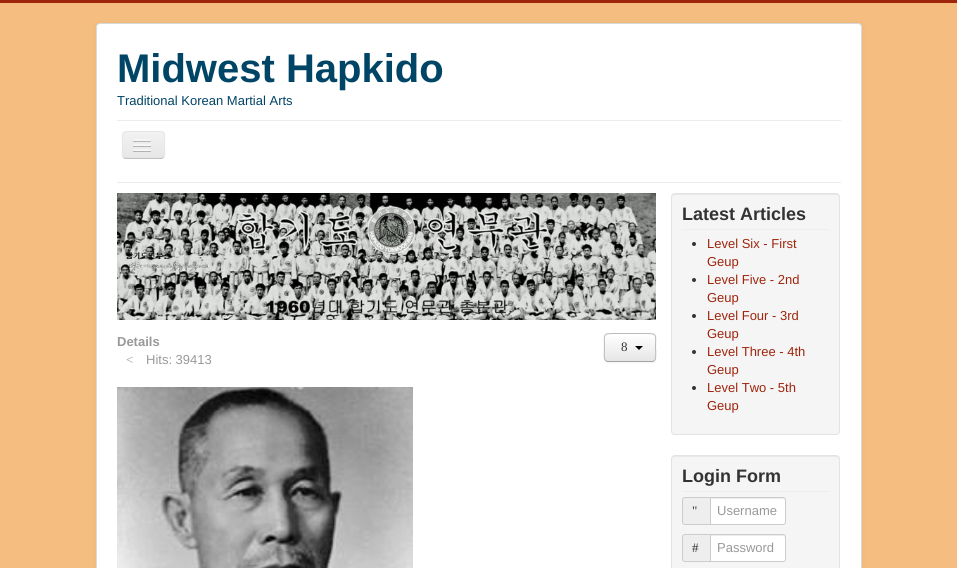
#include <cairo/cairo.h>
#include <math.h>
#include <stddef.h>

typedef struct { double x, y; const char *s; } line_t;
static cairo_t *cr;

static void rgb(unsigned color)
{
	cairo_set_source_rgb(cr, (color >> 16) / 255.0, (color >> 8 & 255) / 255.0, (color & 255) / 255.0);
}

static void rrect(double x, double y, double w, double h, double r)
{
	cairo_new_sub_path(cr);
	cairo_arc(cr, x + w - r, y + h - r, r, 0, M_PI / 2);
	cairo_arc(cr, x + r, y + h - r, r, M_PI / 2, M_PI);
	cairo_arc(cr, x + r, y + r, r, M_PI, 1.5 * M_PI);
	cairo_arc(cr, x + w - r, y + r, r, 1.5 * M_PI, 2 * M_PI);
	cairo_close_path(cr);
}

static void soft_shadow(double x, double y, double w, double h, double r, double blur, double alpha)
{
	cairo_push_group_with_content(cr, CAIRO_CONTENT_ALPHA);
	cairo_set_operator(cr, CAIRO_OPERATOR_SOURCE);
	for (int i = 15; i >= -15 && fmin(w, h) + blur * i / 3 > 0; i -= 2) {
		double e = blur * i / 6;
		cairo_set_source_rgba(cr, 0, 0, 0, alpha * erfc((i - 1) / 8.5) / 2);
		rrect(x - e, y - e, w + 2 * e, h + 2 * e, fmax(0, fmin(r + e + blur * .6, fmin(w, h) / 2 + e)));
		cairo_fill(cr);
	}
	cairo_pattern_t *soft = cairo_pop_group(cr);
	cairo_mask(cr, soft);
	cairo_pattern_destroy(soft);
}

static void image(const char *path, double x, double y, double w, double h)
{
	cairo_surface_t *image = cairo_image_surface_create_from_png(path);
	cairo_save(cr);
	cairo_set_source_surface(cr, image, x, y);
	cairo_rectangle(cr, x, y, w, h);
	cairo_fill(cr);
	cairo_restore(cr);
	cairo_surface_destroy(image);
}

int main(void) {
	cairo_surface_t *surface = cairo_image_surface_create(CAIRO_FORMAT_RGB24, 957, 568);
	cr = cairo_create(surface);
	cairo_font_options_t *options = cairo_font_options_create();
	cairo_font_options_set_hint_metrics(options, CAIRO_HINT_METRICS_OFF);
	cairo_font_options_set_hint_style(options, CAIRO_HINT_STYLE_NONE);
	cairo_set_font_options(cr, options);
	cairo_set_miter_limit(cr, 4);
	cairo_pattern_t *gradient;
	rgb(0xf5be80);
	cairo_paint(cr);
	rgb(0x9e250c);
	cairo_rectangle(cr, 0, 0, 957, 3);
	cairo_fill(cr);
	rgb(0x000000);
	soft_shadow(96, 23, 766, 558, 4, 3, 0.05);
	rgb(0xffffff);
	rrect(96, 23, 766, 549, 4);
	cairo_fill(cr);
	rrect(96.5, 23.5, 765, 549, 3.5);
	cairo_set_source_rgba(cr, 0, 0, 0, 0.15);
	cairo_set_line_width(cr, 1);
	cairo_stroke(cr);
	rgb(0xececec);
	cairo_rectangle(cr, 117, 120, 724, 1);
	cairo_fill(cr);
	cairo_rectangle(cr, 117, 182, 724, 1);
	cairo_fill(cr);
	rgb(0xededed);
	rrect(122, 131, 43, 28, 4);
	cairo_fill(cr);
	cairo_save(cr);
	rrect(122, 131, 43, 28, 4);
	cairo_clip(cr);
	gradient = cairo_pattern_create_linear(144, 132, 144, 158);
	cairo_pattern_add_color_stop_rgba(gradient, 0, 0.949, 0.949, 0.949, 1);
	cairo_pattern_add_color_stop_rgba(gradient, 1, 0.902, 0.902, 0.902, 1);
	cairo_set_source(cr, gradient);
	cairo_pattern_destroy(gradient);
	cairo_rectangle(cr, 122, 132, 43, 26);
	cairo_fill(cr);
	cairo_restore(cr);
	cairo_new_path(cr);
	cairo_move_to(cr, 163.5, 157.5);
	cairo_curve_to(cr, 163, 158, 162, 158.5, 161, 158.5);
	cairo_line_to(cr, 126, 158.5);
	cairo_curve_to(cr, 125, 158.5, 124, 158, 123.5, 157.5);
	rgb(0xbfbfbf);
	cairo_stroke(cr);
	cairo_new_path(cr);
	cairo_move_to(cr, 123.5, 157.5);
	cairo_curve_to(cr, 121.5, 155, 122.5, 147.5, 122.5, 145);
	cairo_curve_to(cr, 122.5, 133, 120, 131.5, 132, 131.5);
	cairo_line_to(cr, 155, 131.5);
	cairo_curve_to(cr, 167, 131.5, 164.5, 133, 164.5, 145);
	cairo_curve_to(cr, 164.5, 147.5, 165.5, 155, 163.5, 157.5);
	rgb(0xe6e6e6);
	cairo_stroke(cr);
	rgb(0xb3b3b3);
	cairo_new_path(cr);
	cairo_move_to(cr, 133, 140.5);
	cairo_curve_to(cr, 132, 142.5, 136.5, 142, 136.5, 142);
	cairo_line_to(cr, 147.5, 142);
	cairo_curve_to(cr, 147.5, 142, 152, 142.5, 151, 140.5);
	cairo_curve_to(cr, 150, 141.5, 143.5, 141, 142, 141);
	cairo_curve_to(cr, 140.5, 141, 134, 141.5, 133, 140.5);
	cairo_close_path(cr);
	cairo_fill(cr);
	rgb(0xf5f5f5);
	rrect(133, 139, 18, 2, 1);
	cairo_fill(cr);
	rgb(0xb0b0b0);
	cairo_new_path(cr);
	cairo_move_to(cr, 133, 145.5);
	cairo_curve_to(cr, 132, 147.5, 136.5, 147, 136.5, 147);
	cairo_line_to(cr, 147.5, 147);
	cairo_curve_to(cr, 147.5, 147, 152, 147.5, 151, 145.5);
	cairo_curve_to(cr, 150, 146.5, 143.5, 146, 142, 146);
	cairo_curve_to(cr, 140.5, 146, 134, 146.5, 133, 145.5);
	cairo_close_path(cr);
	cairo_fill(cr);
	rgb(0xf5f5f5);
	rrect(133, 144, 18, 2, 1);
	cairo_fill(cr);
	rgb(0xafafaf);
	cairo_new_path(cr);
	cairo_move_to(cr, 133, 150.5);
	cairo_curve_to(cr, 132, 152.5, 136.5, 152, 136.5, 152);
	cairo_line_to(cr, 147.5, 152);
	cairo_curve_to(cr, 147.5, 152, 152, 152.5, 151, 150.5);
	cairo_curve_to(cr, 150, 151.5, 143.5, 151, 142, 151);
	cairo_curve_to(cr, 140.5, 151, 134, 151.5, 133, 150.5);
	cairo_close_path(cr);
	cairo_fill(cr);
	rgb(0xf5f5f5);
	rrect(133, 149, 18, 2, 1);
	cairo_fill(cr);
	image("img/1.png", 117, 193, 539, 127);
	rgb(0x000000);
	soft_shadow(604, 334, 52, 29, 4, 1, 0.05);
	rgb(0xf5f5f5);
	rrect(604, 333, 52, 29, 4);
	cairo_fill(cr);
	cairo_save(cr);
	rrect(604, 333, 52, 29, 4);
	cairo_clip(cr);
	gradient = cairo_pattern_create_linear(630, 334, 630, 361);
	cairo_pattern_add_color_stop_rgba(gradient, 0, 1, 1, 1, 1);
	cairo_pattern_add_color_stop_rgba(gradient, 1, 0.902, 0.902, 0.902, 1);
	cairo_set_source(cr, gradient);
	cairo_pattern_destroy(gradient);
	cairo_rectangle(cr, 604, 334, 52, 27);
	cairo_fill(cr);
	cairo_restore(cr);
	rgb(0xffffff);
	cairo_new_path(cr);
	cairo_move_to(cr, 608, 335);
	cairo_line_to(cr, 652, 335);
	cairo_curve_to(cr, 654, 335, 655, 336, 655, 338);
	cairo_curve_to(cr, 655, 332, 649, 334, 645, 334);
	cairo_line_to(cr, 615, 334);
	cairo_curve_to(cr, 611, 334, 605, 332, 605, 338);
	cairo_curve_to(cr, 605, 336, 606, 335, 608, 335);
	cairo_close_path(cr);
	cairo_fill(cr);
	cairo_new_path(cr);
	cairo_move_to(cr, 654.5, 360.5);
	cairo_curve_to(cr, 654, 361, 653, 361.5, 652, 361.5);
	cairo_line_to(cr, 608, 361.5);
	cairo_curve_to(cr, 607, 361.5, 606, 361, 605.5, 360.5);
	rgb(0xa2a2a2);
	cairo_stroke(cr);
	cairo_new_path(cr);
	cairo_move_to(cr, 605.5, 360.5);
	cairo_curve_to(cr, 603.5, 358.5, 604.5, 350, 604.5, 347.5);
	cairo_curve_to(cr, 604.5, 334, 602, 333.5, 615.5, 333.5);
	cairo_line_to(cr, 644.5, 333.5);
	cairo_curve_to(cr, 658, 333.5, 655.5, 334, 655.5, 347.5);
	cairo_curve_to(cr, 655.5, 350, 656.5, 358.5, 654.5, 360.5);
	rgb(0xbbbbbb);
	cairo_stroke(cr);
	rgb(0x000000);
	cairo_new_path(cr);
	cairo_move_to(cr, 635, 346);
	cairo_line_to(cr, 643, 346);
	cairo_line_to(cr, 639, 350);
	cairo_close_path(cr);
	cairo_fill(cr);
	image("img/2.png", 117, 387, 296, 181);
	rgb(0xf5f5f5);
	rrect(671, 193, 169, 242, 4);
	cairo_fill(cr);
	rgb(0xe9e9e9);
	cairo_new_path(cr);
	cairo_move_to(cr, 675, 195);
	cairo_line_to(cr, 836, 195);
	cairo_curve_to(cr, 838, 195, 839, 196, 839, 198);
	cairo_line_to(cr, 839, 197);
	cairo_curve_to(cr, 839, 195, 838, 194, 836, 194);
	cairo_line_to(cr, 675, 194);
	cairo_curve_to(cr, 673, 194, 672, 195, 672, 197);
	cairo_line_to(cr, 672, 198);
	cairo_curve_to(cr, 672, 196, 673, 195, 675, 195);
	cairo_close_path(cr);
	cairo_fill(cr);
	rrect(671.5, 193.5, 168, 241, 3.5);
	rgb(0xe3e3e3);
	cairo_stroke(cr);
	rgb(0xeeeeee);
	cairo_rectangle(cr, 682, 229, 147, 1);
	cairo_fill(cr);
	rgb(0x333333);
	cairo_arc(cr, 694, 244, 2, 0, 2 * M_PI);
	cairo_fill(cr);
	cairo_arc(cr, 694, 280, 2, 0, 2 * M_PI);
	cairo_fill(cr);
	cairo_arc(cr, 694, 316, 2, 0, 2 * M_PI);
	cairo_fill(cr);
	cairo_arc(cr, 694, 352, 2, 0, 2 * M_PI);
	cairo_fill(cr);
	cairo_arc(cr, 694, 388, 2, 0, 2 * M_PI);
	cairo_fill(cr);
	rgb(0xf5f5f5);
	rrect(671, 455, 169, 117, 4);
	cairo_fill(cr);
	rgb(0xe9e9e9);
	cairo_new_path(cr);
	cairo_move_to(cr, 675, 457);
	cairo_line_to(cr, 836, 457);
	cairo_curve_to(cr, 838, 457, 839, 458, 839, 460);
	cairo_line_to(cr, 839, 459);
	cairo_curve_to(cr, 839, 457, 838, 456, 836, 456);
	cairo_line_to(cr, 675, 456);
	cairo_curve_to(cr, 673, 456, 672, 457, 672, 459);
	cairo_line_to(cr, 672, 460);
	cairo_curve_to(cr, 672, 458, 673, 457, 675, 457);
	cairo_close_path(cr);
	cairo_fill(cr);
	rrect(671.5, 455.5, 168, 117, 3.5);
	rgb(0xe3e3e3);
	cairo_stroke(cr);
	rgb(0xeeeeee);
	cairo_rectangle(cr, 682, 491, 147, 1);
	cairo_fill(cr);
	cairo_new_path(cr);
	cairo_move_to(cr, 685, 497.5);
	cairo_line_to(cr, 710.5, 497.5);
	cairo_line_to(cr, 710.5, 524.5);
	cairo_line_to(cr, 685, 524.5);
	cairo_curve_to(cr, 683.5, 524.5, 682.5, 523.5, 682.5, 522);
	cairo_line_to(cr, 682.5, 500);
	cairo_curve_to(cr, 682.5, 498.5, 683.5, 497.5, 685, 497.5);
	cairo_close_path(cr);
	cairo_fill_preserve(cr);
	rgb(0xcccccc);
	cairo_stroke(cr);
	rgb(0xffffff);
	cairo_new_path(cr);
	cairo_move_to(cr, 710, 497);
	cairo_line_to(cr, 783, 497);
	cairo_curve_to(cr, 784.5, 497, 786, 498.5, 786, 500);
	cairo_line_to(cr, 786, 522);
	cairo_curve_to(cr, 786, 523.5, 784.5, 525, 783, 525);
	cairo_line_to(cr, 710, 525);
	cairo_close_path(cr);
	cairo_fill(cr);
	rgb(0xececec);
	cairo_new_path(cr);
	cairo_move_to(cr, 711, 499);
	cairo_line_to(cr, 783, 499);
	cairo_curve_to(cr, 784, 499, 785, 500, 785, 501);
	cairo_line_to(cr, 785, 500);
	cairo_curve_to(cr, 785, 499, 784, 498, 783, 498);
	cairo_line_to(cr, 711, 498);
	cairo_close_path(cr);
	cairo_fill(cr);
	cairo_new_path(cr);
	cairo_move_to(cr, 710.5, 497.5);
	cairo_line_to(cr, 783, 497.5);
	cairo_curve_to(cr, 784.5, 497.5, 785.5, 498.5, 785.5, 500);
	cairo_line_to(cr, 785.5, 522);
	cairo_curve_to(cr, 785.5, 523.5, 784.5, 524.5, 783, 524.5);
	cairo_line_to(cr, 710.5, 524.5);
	cairo_close_path(cr);
	rgb(0xcccccc);
	cairo_stroke(cr);
	rgb(0xeeeeee);
	cairo_new_path(cr);
	cairo_move_to(cr, 685, 534.5);
	cairo_line_to(cr, 710.5, 534.5);
	cairo_line_to(cr, 710.5, 561.5);
	cairo_line_to(cr, 685, 561.5);
	cairo_curve_to(cr, 683.5, 561.5, 682.5, 560.5, 682.5, 559);
	cairo_line_to(cr, 682.5, 537);
	cairo_curve_to(cr, 682.5, 535.5, 683.5, 534.5, 685, 534.5);
	cairo_close_path(cr);
	cairo_fill_preserve(cr);
	rgb(0xcccccc);
	cairo_stroke(cr);
	rgb(0xffffff);
	cairo_new_path(cr);
	cairo_move_to(cr, 710, 534);
	cairo_line_to(cr, 783, 534);
	cairo_curve_to(cr, 784.5, 534, 786, 535.5, 786, 537);
	cairo_line_to(cr, 786, 559);
	cairo_curve_to(cr, 786, 560.5, 784.5, 562, 783, 562);
	cairo_line_to(cr, 710, 562);
	cairo_close_path(cr);
	cairo_fill(cr);
	rgb(0xececec);
	cairo_new_path(cr);
	cairo_move_to(cr, 711, 536);
	cairo_line_to(cr, 783, 536);
	cairo_curve_to(cr, 784, 536, 785, 537, 785, 538);
	cairo_line_to(cr, 785, 537);
	cairo_curve_to(cr, 785, 536, 784, 535, 783, 535);
	cairo_line_to(cr, 711, 535);
	cairo_close_path(cr);
	cairo_fill(cr);
	cairo_new_path(cr);
	cairo_move_to(cr, 710.5, 534.5);
	cairo_line_to(cr, 783, 534.5);
	cairo_curve_to(cr, 784.5, 534.5, 785.5, 535.5, 785.5, 537);
	cairo_line_to(cr, 785.5, 559);
	cairo_curve_to(cr, 785.5, 560.5, 784.5, 561.5, 783, 561.5);
	cairo_line_to(cr, 710.5, 561.5);
	cairo_close_path(cr);
	rgb(0xcccccc);
	cairo_stroke(cr);
	cairo_select_font_face(cr, "Liberation Sans", CAIRO_FONT_SLANT_NORMAL, CAIRO_FONT_WEIGHT_BOLD);
	cairo_set_font_size(cr, 40);
	rgb(0x004466);
	cairo_move_to(cr, 117, 82);
	cairo_show_text(cr, "Midwest Hapkido");
	cairo_select_font_face(cr, "Liberation Sans", CAIRO_FONT_SLANT_NORMAL, CAIRO_FONT_WEIGHT_NORMAL);
	cairo_set_font_size(cr, 13);
	cairo_move_to(cr, 117, 105);
	cairo_show_text(cr, "Traditional Korean Martial Arts");
	cairo_select_font_face(cr, "Liberation Sans", CAIRO_FONT_SLANT_NORMAL, CAIRO_FONT_WEIGHT_BOLD);
	rgb(0x999999);
	cairo_move_to(cr, 117, 346);
	cairo_show_text(cr, "Details");
	cairo_select_font_face(cr, "Liberation Serif", CAIRO_FONT_SLANT_NORMAL, CAIRO_FONT_WEIGHT_NORMAL);
	cairo_move_to(cr, 126, 364);
	cairo_show_text(cr, "<");
	cairo_select_font_face(cr, "Liberation Sans", CAIRO_FONT_SLANT_NORMAL, CAIRO_FONT_WEIGHT_NORMAL);
	cairo_move_to(cr, 146, 364);
	cairo_show_text(cr, "Hits: 39413");
	cairo_select_font_face(cr, "Liberation Serif", CAIRO_FONT_SLANT_NORMAL, CAIRO_FONT_WEIGHT_NORMAL);
	rgb(0x333333);
	cairo_move_to(cr, 621, 351);
	cairo_show_text(cr, "8");
	cairo_select_font_face(cr, "Liberation Sans", CAIRO_FONT_SLANT_NORMAL, CAIRO_FONT_WEIGHT_BOLD);
	cairo_set_font_size(cr, 18);
	cairo_move_to(cr, 682, 220);
	cairo_show_text(cr, "Latest Articles");
	cairo_select_font_face(cr, "Liberation Sans", CAIRO_FONT_SLANT_NORMAL, CAIRO_FONT_WEIGHT_NORMAL);
	cairo_set_font_size(cr, 13);
	rgb(0x9e250c);
	{
		static const line_t items[] = {
			{707, 248, "Level Six - First"},
			{707, 266, "Geup"},
			{707, 284, "Level Five - 2nd"},
			{707, 302, "Geup"},
			{707, 320, "Level Four - 3rd"},
			{707, 338, "Geup"},
			{707, 356, "Level Three - 4th"},
			{707, 374, "Geup"},
			{707, 392, "Level Two - 5th"},
			{707, 410, "Geup"},
		};
		for (size_t i = 0; i < sizeof items / sizeof *items; i++) {
			cairo_move_to(cr, items[i].x, items[i].y);
			cairo_show_text(cr, items[i].s);
		}
	}
	cairo_select_font_face(cr, "Liberation Sans", CAIRO_FONT_SLANT_NORMAL, CAIRO_FONT_WEIGHT_BOLD);
	cairo_set_font_size(cr, 18);
	rgb(0x333333);
	cairo_move_to(cr, 682, 482);
	cairo_show_text(cr, "Login Form");
	cairo_select_font_face(cr, "Liberation Serif", CAIRO_FONT_SLANT_NORMAL, CAIRO_FONT_WEIGHT_NORMAL);
	cairo_set_font_size(cr, 13);
	cairo_move_to(cr, 692, 515);
	cairo_show_text(cr, "\"");
	cairo_select_font_face(cr, "Liberation Sans", CAIRO_FONT_SLANT_NORMAL, CAIRO_FONT_WEIGHT_NORMAL);
	rgb(0x999999);
	cairo_move_to(cr, 717, 515);
	cairo_show_text(cr, "Username");
	cairo_select_font_face(cr, "Liberation Serif", CAIRO_FONT_SLANT_NORMAL, CAIRO_FONT_WEIGHT_NORMAL);
	rgb(0x333333);
	cairo_move_to(cr, 692, 552);
	cairo_show_text(cr, "#");
	cairo_select_font_face(cr, "Liberation Sans", CAIRO_FONT_SLANT_NORMAL, CAIRO_FONT_WEIGHT_NORMAL);
	rgb(0x999999);
	cairo_move_to(cr, 717, 552);
	cairo_show_text(cr, "Password");
	cairo_surface_write_to_png(surface, "page.png");
	cairo_font_options_destroy(options);
	cairo_destroy(cr);
	cairo_surface_destroy(surface);
	return 0;
}
